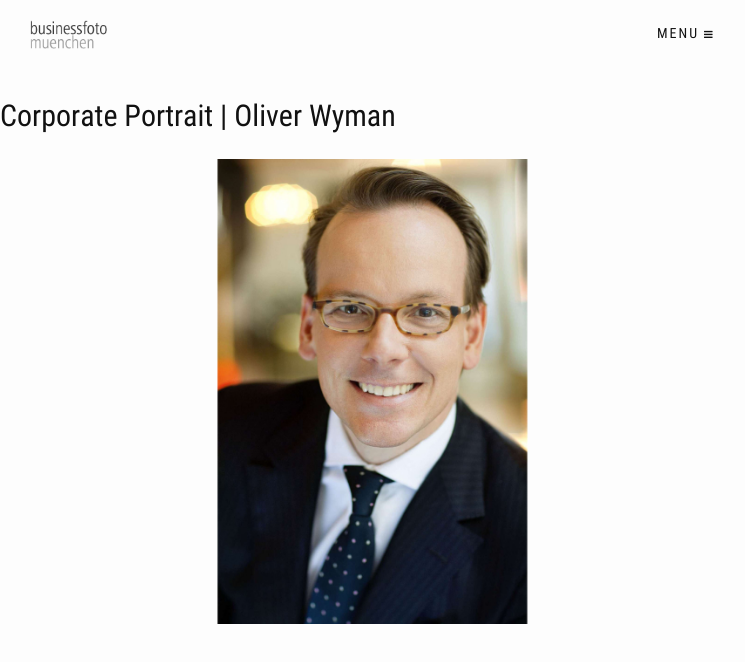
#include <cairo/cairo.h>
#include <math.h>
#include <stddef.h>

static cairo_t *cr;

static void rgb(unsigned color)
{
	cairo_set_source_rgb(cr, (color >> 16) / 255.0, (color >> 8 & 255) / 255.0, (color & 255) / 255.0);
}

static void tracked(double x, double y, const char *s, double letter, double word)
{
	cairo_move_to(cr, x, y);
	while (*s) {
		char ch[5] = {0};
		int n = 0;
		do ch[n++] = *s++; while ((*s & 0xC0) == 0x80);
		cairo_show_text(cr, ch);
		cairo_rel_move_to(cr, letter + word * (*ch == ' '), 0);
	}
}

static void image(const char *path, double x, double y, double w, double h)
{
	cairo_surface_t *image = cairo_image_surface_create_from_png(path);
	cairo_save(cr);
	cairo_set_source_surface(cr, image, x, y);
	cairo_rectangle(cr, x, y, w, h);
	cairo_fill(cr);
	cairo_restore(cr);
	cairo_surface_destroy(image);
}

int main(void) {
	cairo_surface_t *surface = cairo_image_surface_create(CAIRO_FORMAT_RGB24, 745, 662);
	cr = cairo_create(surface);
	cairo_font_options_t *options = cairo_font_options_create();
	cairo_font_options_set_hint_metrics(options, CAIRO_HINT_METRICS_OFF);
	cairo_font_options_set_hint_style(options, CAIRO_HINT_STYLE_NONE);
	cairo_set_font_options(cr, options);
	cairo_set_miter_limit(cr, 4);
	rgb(0xfdfdfd);
	cairo_paint(cr);
	image("img/1.png", 30, 20, 77, 29);
	image("img/2.png", 704, 30, 9, 8);
	image("img/3.png", 217, 159, 311, 465);
	cairo_select_font_face(cr, "Roboto Condensed", CAIRO_FONT_SLANT_NORMAL, CAIRO_FONT_WEIGHT_NORMAL);
	cairo_set_font_size(cr, 14);
	rgb(0x111111);
	tracked(657, 38, "MENU", 2, 0);
	cairo_set_font_size(cr, 30);
	cairo_move_to(cr, 0, 126);
	cairo_show_text(cr, "Corporate Portrait | Oliver Wyman");
	cairo_surface_write_to_png(surface, "page.png");
	cairo_font_options_destroy(options);
	cairo_destroy(cr);
	cairo_surface_destroy(surface);
	return 0;
}
